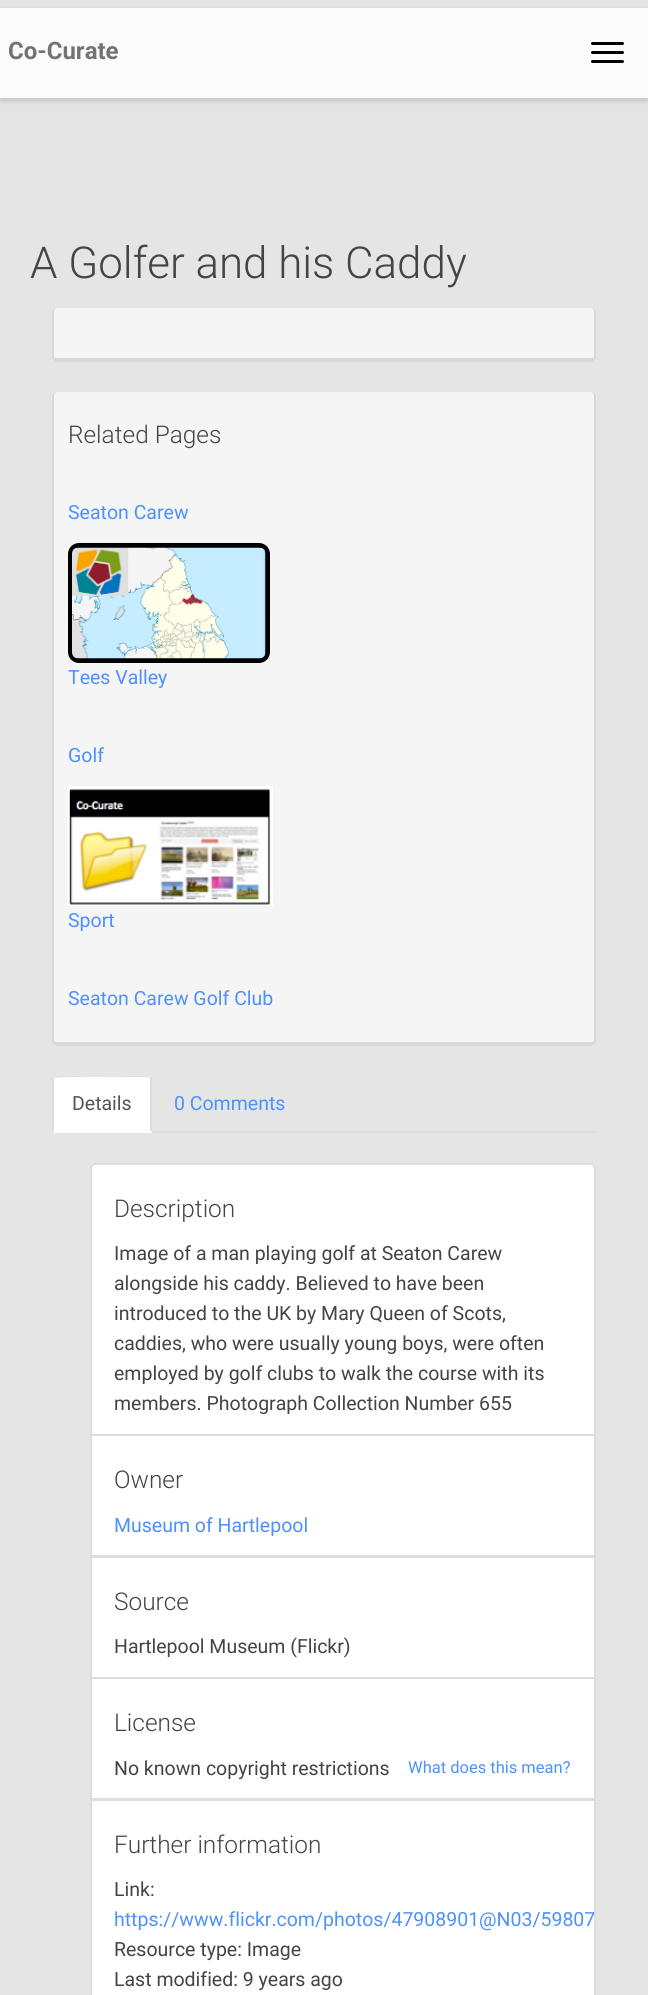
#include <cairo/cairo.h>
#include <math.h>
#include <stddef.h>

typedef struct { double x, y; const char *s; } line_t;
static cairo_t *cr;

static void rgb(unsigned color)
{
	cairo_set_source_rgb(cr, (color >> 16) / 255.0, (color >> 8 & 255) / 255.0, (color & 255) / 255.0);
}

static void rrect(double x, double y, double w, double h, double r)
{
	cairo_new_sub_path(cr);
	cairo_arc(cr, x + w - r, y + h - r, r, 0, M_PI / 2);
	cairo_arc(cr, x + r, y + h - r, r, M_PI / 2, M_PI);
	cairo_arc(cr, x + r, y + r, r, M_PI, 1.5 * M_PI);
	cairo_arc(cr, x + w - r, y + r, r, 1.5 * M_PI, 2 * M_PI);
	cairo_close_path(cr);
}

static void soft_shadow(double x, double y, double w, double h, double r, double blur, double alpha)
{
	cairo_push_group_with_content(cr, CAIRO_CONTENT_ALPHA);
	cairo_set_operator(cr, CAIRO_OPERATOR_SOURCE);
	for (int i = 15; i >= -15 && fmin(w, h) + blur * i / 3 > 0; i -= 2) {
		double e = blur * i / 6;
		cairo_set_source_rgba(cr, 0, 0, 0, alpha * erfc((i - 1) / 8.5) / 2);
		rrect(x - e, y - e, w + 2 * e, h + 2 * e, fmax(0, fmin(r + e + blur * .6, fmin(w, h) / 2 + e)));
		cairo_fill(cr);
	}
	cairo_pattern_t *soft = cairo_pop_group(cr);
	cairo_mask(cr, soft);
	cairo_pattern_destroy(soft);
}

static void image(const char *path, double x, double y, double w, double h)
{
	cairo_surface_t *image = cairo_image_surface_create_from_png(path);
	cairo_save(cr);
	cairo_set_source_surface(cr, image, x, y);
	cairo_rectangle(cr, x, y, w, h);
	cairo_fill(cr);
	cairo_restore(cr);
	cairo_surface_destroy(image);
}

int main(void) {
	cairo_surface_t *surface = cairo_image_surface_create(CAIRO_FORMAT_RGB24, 648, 1995);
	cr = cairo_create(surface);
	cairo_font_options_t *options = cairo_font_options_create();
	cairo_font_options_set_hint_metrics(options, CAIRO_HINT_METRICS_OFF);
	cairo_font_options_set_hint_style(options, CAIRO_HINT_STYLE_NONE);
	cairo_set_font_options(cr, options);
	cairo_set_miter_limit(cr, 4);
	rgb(0xe5e5e5);
	cairo_paint(cr);
	rgb(0x000000);
	soft_shadow(0, 11, 648, 90, 0, 3, 0.15);
	rgb(0xfbfbfb);
	cairo_rectangle(cr, 0, 8, 648, 90);
	cairo_fill(cr);
	rgb(0x000000);
	rrect(591, 42, 33, 3, 1.5);
	cairo_fill(cr);
	rrect(591, 51, 33, 3, 1.5);
	cairo_fill(cr);
	rrect(591, 60, 33, 3, 1.5);
	cairo_fill(cr);
	rgb(0xf5f5f5);
	cairo_new_path(cr);
	cairo_move_to(cr, 57, 308);
	cairo_line_to(cr, 591, 308);
	cairo_curve_to(cr, 593, 308, 594, 310, 594, 312);
	cairo_line_to(cr, 594, 357);
	cairo_curve_to(cr, 594, 358, 593, 358, 591, 358);
	cairo_line_to(cr, 57, 358);
	cairo_curve_to(cr, 55, 358, 54, 358, 54, 357);
	cairo_line_to(cr, 54, 312);
	cairo_curve_to(cr, 54, 310, 55, 308, 57, 308);
	cairo_close_path(cr);
	cairo_fill(cr);
	rgb(0xd8d8d8);
	cairo_set_fill_rule(cr, CAIRO_FILL_RULE_EVEN_ODD);
	cairo_new_path(cr);
	cairo_move_to(cr, 57, 308);
	cairo_line_to(cr, 591, 308);
	cairo_curve_to(cr, 593, 308, 596, 310, 596, 312);
	cairo_line_to(cr, 596, 357);
	cairo_curve_to(cr, 596, 359, 593, 362, 591, 362);
	cairo_line_to(cr, 57, 362);
	cairo_curve_to(cr, 55, 362, 52, 359, 52, 357);
	cairo_line_to(cr, 52, 312);
	cairo_curve_to(cr, 52, 310, 55, 308, 57, 308);
	cairo_close_path(cr);
	cairo_move_to(cr, 57, 308);
	cairo_line_to(cr, 591, 308);
	cairo_curve_to(cr, 593, 308, 594, 310, 594, 312);
	cairo_line_to(cr, 594, 357);
	cairo_curve_to(cr, 594, 358, 593, 358, 591, 358);
	cairo_line_to(cr, 57, 358);
	cairo_curve_to(cr, 55, 358, 54, 358, 54, 357);
	cairo_line_to(cr, 54, 312);
	cairo_curve_to(cr, 54, 310, 55, 308, 57, 308);
	cairo_close_path(cr);
	cairo_fill(cr);
	rgb(0xf5f5f5);
	cairo_set_fill_rule(cr, CAIRO_FILL_RULE_WINDING);
	cairo_new_path(cr);
	cairo_move_to(cr, 57, 392);
	cairo_line_to(cr, 591, 392);
	cairo_curve_to(cr, 593, 392, 594, 394, 594, 396);
	cairo_line_to(cr, 594, 1041);
	cairo_curve_to(cr, 594, 1042, 593, 1042, 591, 1042);
	cairo_line_to(cr, 57, 1042);
	cairo_curve_to(cr, 55, 1042, 54, 1042, 54, 1041);
	cairo_line_to(cr, 54, 396);
	cairo_curve_to(cr, 54, 394, 55, 392, 57, 392);
	cairo_close_path(cr);
	cairo_fill(cr);
	rgb(0xd8d8d8);
	cairo_set_fill_rule(cr, CAIRO_FILL_RULE_EVEN_ODD);
	cairo_new_path(cr);
	cairo_move_to(cr, 57, 392);
	cairo_line_to(cr, 591, 392);
	cairo_curve_to(cr, 593, 392, 596, 394, 596, 396);
	cairo_line_to(cr, 596, 1041);
	cairo_curve_to(cr, 596, 1043, 593, 1046, 591, 1046);
	cairo_line_to(cr, 57, 1046);
	cairo_curve_to(cr, 55, 1046, 52, 1043, 52, 1041);
	cairo_line_to(cr, 52, 396);
	cairo_curve_to(cr, 52, 394, 55, 392, 57, 392);
	cairo_close_path(cr);
	cairo_move_to(cr, 57, 392);
	cairo_line_to(cr, 591, 392);
	cairo_curve_to(cr, 593, 392, 594, 394, 594, 396);
	cairo_line_to(cr, 594, 1041);
	cairo_curve_to(cr, 594, 1042, 593, 1042, 591, 1042);
	cairo_line_to(cr, 57, 1042);
	cairo_curve_to(cr, 55, 1042, 54, 1042, 54, 1041);
	cairo_line_to(cr, 54, 396);
	cairo_curve_to(cr, 54, 394, 55, 392, 57, 392);
	cairo_close_path(cr);
	cairo_fill(cr);
	rrect(70.5, 545.5, 197, 115, 8.5);
	rgb(0x000000);
	cairo_set_line_width(cr, 5);
	cairo_stroke(cr);
	image("img/1.png", 72, 547, 194, 112);
	image("img/2.png", 67, 786, 206, 120);
	rgb(0xdddddd);
	cairo_rectangle(cr, 152, 1131, 444, 2);
	cairo_fill(cr);
	rgb(0xffffff);
	cairo_new_path(cr);
	cairo_move_to(cr, 56, 1076);
	cairo_line_to(cr, 149, 1076);
	cairo_curve_to(cr, 150.5, 1076, 152, 1077.5, 152, 1079);
	cairo_line_to(cr, 152, 1133);
	cairo_line_to(cr, 53, 1133);
	cairo_line_to(cr, 53, 1079);
	cairo_curve_to(cr, 53, 1077.5, 54.5, 1076, 56, 1076);
	cairo_close_path(cr);
	cairo_fill(cr);
	rgb(0xdddddd);
	cairo_set_fill_rule(cr, CAIRO_FILL_RULE_WINDING);
	cairo_new_path(cr);
	cairo_move_to(cr, 56, 1076);
	cairo_line_to(cr, 54, 1077);
	cairo_line_to(cr, 55, 1078);
	cairo_curve_to(cr, 57, 1076, 138, 1077, 148, 1077);
	cairo_line_to(cr, 149, 1078);
	cairo_line_to(cr, 150, 1077);
	cairo_line_to(cr, 148, 1076);
	cairo_close_path(cr);
	cairo_fill(cr);
	cairo_new_path(cr);
	cairo_move_to(cr, 152, 1132);
	cairo_line_to(cr, 150, 1131);
	cairo_line_to(cr, 150, 1078);
	cairo_line_to(cr, 149, 1078);
	cairo_line_to(cr, 150, 1077);
	cairo_line_to(cr, 152, 1077);
	cairo_close_path(cr);
	cairo_fill(cr);
	cairo_new_path(cr);
	cairo_move_to(cr, 52, 1077);
	cairo_line_to(cr, 54, 1077);
	cairo_line_to(cr, 55, 1078);
	cairo_line_to(cr, 54, 1078);
	cairo_line_to(cr, 54, 1131);
	cairo_line_to(cr, 53, 1132);
	cairo_line_to(cr, 52, 1132);
	cairo_close_path(cr);
	cairo_fill(cr);
	rgb(0xffffff);
	cairo_new_path(cr);
	cairo_move_to(cr, 96, 1164);
	cairo_line_to(cr, 590, 1164);
	cairo_curve_to(cr, 593, 1164, 595, 1166, 595, 1169);
	cairo_line_to(cr, 595, 1435);
	cairo_line_to(cr, 91, 1435);
	cairo_line_to(cr, 91, 1169);
	cairo_curve_to(cr, 91, 1166, 93, 1164, 96, 1164);
	cairo_close_path(cr);
	cairo_fill_preserve(cr);
	rgb(0xdddddd);
	cairo_set_line_width(cr, 2);
	cairo_stroke(cr);
	rgb(0xffffff);
	cairo_rectangle(cr, 91, 1435, 504, 121);
	cairo_fill_preserve(cr);
	rgb(0xdddddd);
	cairo_stroke(cr);
	rgb(0xffffff);
	cairo_rectangle(cr, 91, 1557, 504, 121);
	cairo_fill_preserve(cr);
	rgb(0xdddddd);
	cairo_stroke(cr);
	rgb(0xffffff);
	cairo_rectangle(cr, 91, 1678, 504, 121);
	cairo_fill_preserve(cr);
	rgb(0xdddddd);
	cairo_stroke(cr);
	rgb(0xffffff);
	cairo_rectangle(cr, 91, 1800, 504, 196);
	cairo_fill_preserve(cr);
	rgb(0xdddddd);
	cairo_stroke(cr);
	cairo_select_font_face(cr, "Roboto", CAIRO_FONT_SLANT_NORMAL, CAIRO_FONT_WEIGHT_BOLD);
	cairo_set_font_size(cr, 24);
	rgb(0x737373);
	cairo_move_to(cr, 8, 59);
	cairo_show_text(cr, "Co-Curate");
	cairo_select_font_face(cr, "Roboto Light", CAIRO_FONT_SLANT_NORMAL, CAIRO_FONT_WEIGHT_NORMAL);
	cairo_set_font_size(cr, 43.9);
	rgb(0x444444);
	cairo_move_to(cr, 30, 278);
	cairo_show_text(cr, "A Golfer and his Caddy");
	cairo_set_font_size(cr, 24.4);
	cairo_move_to(cr, 68, 443);
	cairo_show_text(cr, "Related Pages");
	cairo_select_font_face(cr, "Roboto", CAIRO_FONT_SLANT_NORMAL, CAIRO_FONT_WEIGHT_NORMAL);
	cairo_set_font_size(cr, 19.5);
	rgb(0x4d90fe);
	{
		static const line_t items[] = {
			{68, 519, "Seaton Carew"},
			{68, 684, "Tees Valley"},
			{68, 762, "Golf"},
			{68, 927, "Sport"},
			{68, 1005, "Seaton Carew Golf Club"},
		};
		for (size_t i = 0; i < sizeof items / sizeof *items; i++) {
			cairo_move_to(cr, items[i].x, items[i].y);
			cairo_show_text(cr, items[i].s);
		}
	}
	rgb(0x555555);
	cairo_move_to(cr, 72, 1110);
	cairo_show_text(cr, "Details");
	rgb(0x4d90fe);
	cairo_move_to(cr, 174, 1110);
	cairo_show_text(cr, "0 Comments");
	cairo_select_font_face(cr, "Roboto Light", CAIRO_FONT_SLANT_NORMAL, CAIRO_FONT_WEIGHT_NORMAL);
	cairo_set_font_size(cr, 24.4);
	rgb(0x444444);
	cairo_move_to(cr, 114, 1217);
	cairo_show_text(cr, "Description");
	cairo_select_font_face(cr, "Roboto", CAIRO_FONT_SLANT_NORMAL, CAIRO_FONT_WEIGHT_NORMAL);
	cairo_set_font_size(cr, 19.5);
	{
		static const line_t items[] = {
			{114, 1260, "Image of a man playing golf at Seaton Carew"},
			{114, 1290, "alongside his caddy. Believed to have been"},
			{114, 1320, "introduced to the UK by Mary Queen of Scots,"},
			{114, 1350, "caddies, who were usually young boys, were often"},
			{114, 1380, "employed by golf clubs to walk the course with its"},
			{114, 1410, "members. Photograph Collection Number 655"},
		};
		for (size_t i = 0; i < sizeof items / sizeof *items; i++) {
			cairo_move_to(cr, items[i].x, items[i].y);
			cairo_show_text(cr, items[i].s);
		}
	}
	cairo_select_font_face(cr, "Roboto Light", CAIRO_FONT_SLANT_NORMAL, CAIRO_FONT_WEIGHT_NORMAL);
	cairo_set_font_size(cr, 24.4);
	cairo_move_to(cr, 114, 1488);
	cairo_show_text(cr, "Owner");
	cairo_select_font_face(cr, "Roboto", CAIRO_FONT_SLANT_NORMAL, CAIRO_FONT_WEIGHT_NORMAL);
	cairo_set_font_size(cr, 19.5);
	rgb(0x4d90fe);
	cairo_move_to(cr, 114, 1532);
	cairo_show_text(cr, "Museum of Hartlepool");
	cairo_select_font_face(cr, "Roboto Light", CAIRO_FONT_SLANT_NORMAL, CAIRO_FONT_WEIGHT_NORMAL);
	cairo_set_font_size(cr, 24.4);
	rgb(0x444444);
	cairo_move_to(cr, 114, 1610);
	cairo_show_text(cr, "Source");
	cairo_select_font_face(cr, "Roboto", CAIRO_FONT_SLANT_NORMAL, CAIRO_FONT_WEIGHT_NORMAL);
	cairo_set_font_size(cr, 19.5);
	cairo_move_to(cr, 114, 1653);
	cairo_show_text(cr, "Hartlepool Museum (Flickr)");
	cairo_select_font_face(cr, "Roboto Light", CAIRO_FONT_SLANT_NORMAL, CAIRO_FONT_WEIGHT_NORMAL);
	cairo_set_font_size(cr, 24.4);
	cairo_move_to(cr, 114, 1731);
	cairo_show_text(cr, "License");
	cairo_select_font_face(cr, "Roboto", CAIRO_FONT_SLANT_NORMAL, CAIRO_FONT_WEIGHT_NORMAL);
	cairo_set_font_size(cr, 19.5);
	cairo_move_to(cr, 114, 1775);
	cairo_show_text(cr, "No known copyright restrictions");
	cairo_set_font_size(cr, 16.5);
	rgb(0x4d90fe);
	cairo_move_to(cr, 408, 1773);
	cairo_show_text(cr, "What does this mean?");
	cairo_select_font_face(cr, "Roboto Light", CAIRO_FONT_SLANT_NORMAL, CAIRO_FONT_WEIGHT_NORMAL);
	cairo_set_font_size(cr, 24.4);
	rgb(0x444444);
	cairo_move_to(cr, 114, 1853);
	cairo_show_text(cr, "Further information");
	cairo_select_font_face(cr, "Roboto", CAIRO_FONT_SLANT_NORMAL, CAIRO_FONT_WEIGHT_NORMAL);
	cairo_set_font_size(cr, 19.5);
	cairo_move_to(cr, 114, 1896);
	cairo_show_text(cr, "Link:");
	rgb(0x4d90fe);
	cairo_move_to(cr, 114, 1926);
	cairo_show_text(cr, "https://www.flickr.com/photos/47908901@N03/59807");
	rgb(0x444444);
	cairo_move_to(cr, 114, 1956);
	cairo_show_text(cr, "Resource type: Image");
	cairo_move_to(cr, 114, 1986);
	cairo_show_text(cr, "Last modified: 9 years ago");
	cairo_surface_write_to_png(surface, "page.png");
	cairo_font_options_destroy(options);
	cairo_destroy(cr);
	cairo_surface_destroy(surface);
	return 0;
}
